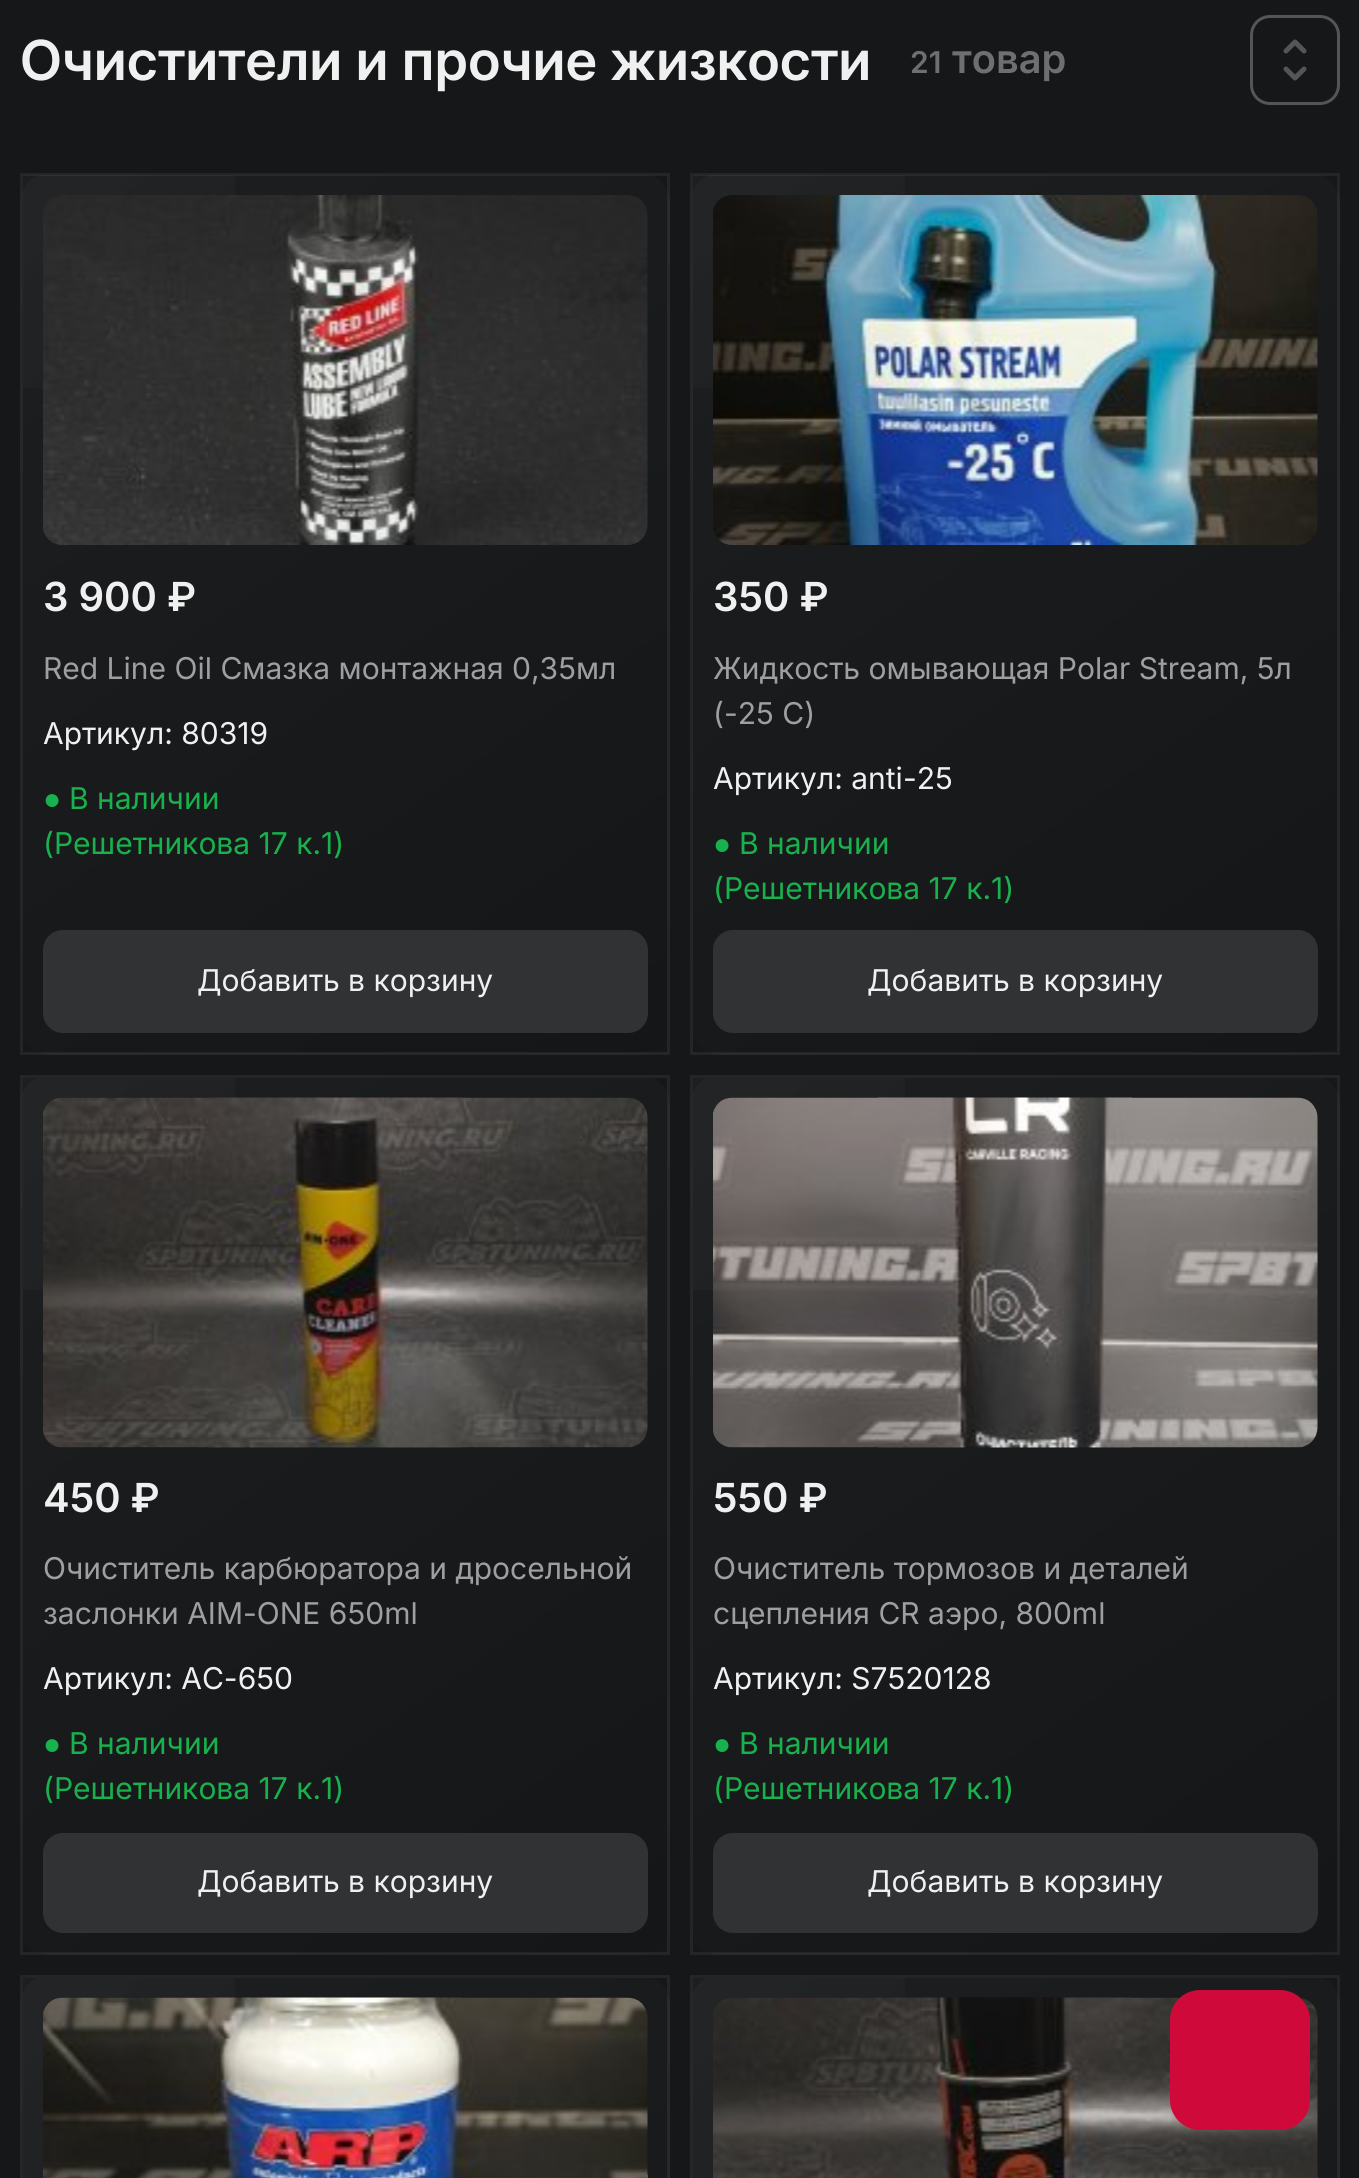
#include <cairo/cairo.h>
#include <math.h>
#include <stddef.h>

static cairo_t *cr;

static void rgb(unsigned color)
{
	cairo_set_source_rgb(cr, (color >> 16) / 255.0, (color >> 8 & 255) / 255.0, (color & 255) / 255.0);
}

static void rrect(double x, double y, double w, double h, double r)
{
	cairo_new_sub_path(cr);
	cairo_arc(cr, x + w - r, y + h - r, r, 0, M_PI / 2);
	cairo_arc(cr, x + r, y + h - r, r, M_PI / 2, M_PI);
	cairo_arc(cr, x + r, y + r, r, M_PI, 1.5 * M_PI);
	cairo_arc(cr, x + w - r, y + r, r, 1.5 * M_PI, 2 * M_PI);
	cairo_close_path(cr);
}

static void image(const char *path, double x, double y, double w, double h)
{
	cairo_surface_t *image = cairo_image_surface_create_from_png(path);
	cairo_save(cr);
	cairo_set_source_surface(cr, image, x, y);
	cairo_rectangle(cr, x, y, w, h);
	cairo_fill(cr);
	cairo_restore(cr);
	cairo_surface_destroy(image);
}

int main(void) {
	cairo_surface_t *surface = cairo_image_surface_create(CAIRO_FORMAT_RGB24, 1359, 2178);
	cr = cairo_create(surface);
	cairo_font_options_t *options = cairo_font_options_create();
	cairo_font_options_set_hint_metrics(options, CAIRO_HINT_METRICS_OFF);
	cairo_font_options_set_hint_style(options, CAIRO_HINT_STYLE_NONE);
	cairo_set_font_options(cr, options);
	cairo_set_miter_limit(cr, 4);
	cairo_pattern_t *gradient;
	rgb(0x151718);
	cairo_paint(cr);
	rrect(1251.5, 16.5, 87, 87, 18.5);
	rgb(0x555558);
	cairo_set_line_width(cr, 3);
	cairo_stroke(cr);
	cairo_new_path(cr);
	cairo_move_to(cr, 1304, 69);
	cairo_line_to(cr, 1295, 78);
	cairo_line_to(cr, 1286, 69);
	cairo_move_to(cr, 1286, 51);
	cairo_line_to(cr, 1295, 42);
	cairo_line_to(cr, 1304, 51);
	cairo_set_line_width(cr, 5);
	cairo_set_line_cap(cr, CAIRO_LINE_CAP_ROUND);
	cairo_set_line_join(cr, CAIRO_LINE_JOIN_ROUND);
	cairo_stroke(cr);
	cairo_save(cr);
	rrect(20, 173, 650, 882, 30);
	cairo_clip(cr);
	gradient = cairo_pattern_create_linear(-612, 168, 12, 1060);
	cairo_pattern_add_color_stop_rgba(gradient, 0, 0.11, 0.118, 0.122, 1);
	cairo_pattern_add_color_stop_rgba(gradient, 1, 0.078, 0.086, 0.09, 1);
	cairo_set_source(cr, gradient);
	cairo_pattern_destroy(gradient);
	cairo_rectangle(cr, 20, 190, 3, 848);
	cairo_fill(cr);
	gradient = cairo_pattern_create_linear(33, 168, 657, 1060);
	cairo_pattern_add_color_stop_rgba(gradient, 0, 0.11, 0.118, 0.122, 1);
	cairo_pattern_add_color_stop_rgba(gradient, 1, 0.078, 0.086, 0.09, 1);
	cairo_set_source(cr, gradient);
	cairo_pattern_destroy(gradient);
	cairo_rectangle(cr, 23, 175, 645, 878);
	cairo_fill(cr);
	gradient = cairo_pattern_create_linear(678, 168, 1302, 1060);
	cairo_pattern_add_color_stop_rgba(gradient, 0, 0.11, 0.118, 0.122, 1);
	cairo_pattern_add_color_stop_rgba(gradient, 1, 0.078, 0.086, 0.09, 1);
	cairo_set_source(cr, gradient);
	cairo_pattern_destroy(gradient);
	cairo_rectangle(cr, 668, 192, 2, 844);
	cairo_fill(cr);
	gradient = cairo_pattern_create_linear(33, 1045, 657, 1937);
	cairo_pattern_add_color_stop_rgba(gradient, 0, 0.11, 0.118, 0.122, 1);
	cairo_pattern_add_color_stop_rgba(gradient, 1, 0.078, 0.086, 0.09, 1);
	cairo_set_source(cr, gradient);
	cairo_pattern_destroy(gradient);
	cairo_rectangle(cr, 39, 1053, 612, 2);
	cairo_fill(cr);
	cairo_restore(cr);
	cairo_rectangle(cr, 21.5, 174.5, 647, 879);
	cairo_set_source_rgba(cr, 1, 1, 1, 0.06);
	cairo_set_line_width(cr, 3);
	cairo_set_line_cap(cr, CAIRO_LINE_CAP_BUTT);
	cairo_set_line_join(cr, CAIRO_LINE_JOIN_MITER);
	cairo_stroke(cr);
	gradient = cairo_pattern_create_linear(-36, 233, 726, 994);
	cairo_pattern_add_color_stop_rgba(gradient, 0, 1, 1, 1, 0.03);
	cairo_pattern_add_color_stop_rgba(gradient, 0.5, 1, 1, 1, 0);
	cairo_set_source(cr, gradient);
	cairo_pattern_destroy(gradient);
	cairo_rectangle(cr, 23, 175, 212, 213);
	cairo_fill(cr);
	image("img/1.png", 43, 195, 605, 350);
	rgb(0x303233);
	rrect(43, 930, 605, 103, 20);
	cairo_fill(cr);
	cairo_save(cr);
	rrect(690, 173, 650, 882, 30);
	cairo_clip(cr);
	gradient = cairo_pattern_create_linear(58, 168, 682, 1060);
	cairo_pattern_add_color_stop_rgba(gradient, 0, 0.11, 0.118, 0.122, 1);
	cairo_pattern_add_color_stop_rgba(gradient, 1, 0.078, 0.086, 0.09, 1);
	cairo_set_source(cr, gradient);
	cairo_pattern_destroy(gradient);
	cairo_rectangle(cr, 690, 190, 3, 848);
	cairo_fill(cr);
	gradient = cairo_pattern_create_linear(703, 168, 1327, 1060);
	cairo_pattern_add_color_stop_rgba(gradient, 0, 0.11, 0.118, 0.122, 1);
	cairo_pattern_add_color_stop_rgba(gradient, 1, 0.078, 0.086, 0.09, 1);
	cairo_set_source(cr, gradient);
	cairo_pattern_destroy(gradient);
	cairo_rectangle(cr, 693, 175, 645, 878);
	cairo_fill(cr);
	gradient = cairo_pattern_create_linear(1348, 168, 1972, 1060);
	cairo_pattern_add_color_stop_rgba(gradient, 0, 0.11, 0.118, 0.122, 1);
	cairo_pattern_add_color_stop_rgba(gradient, 1, 0.078, 0.086, 0.09, 1);
	cairo_set_source(cr, gradient);
	cairo_pattern_destroy(gradient);
	cairo_rectangle(cr, 1338, 192, 2, 844);
	cairo_fill(cr);
	gradient = cairo_pattern_create_linear(703, 1045, 1327, 1937);
	cairo_pattern_add_color_stop_rgba(gradient, 0, 0.11, 0.118, 0.122, 1);
	cairo_pattern_add_color_stop_rgba(gradient, 1, 0.078, 0.086, 0.09, 1);
	cairo_set_source(cr, gradient);
	cairo_pattern_destroy(gradient);
	cairo_rectangle(cr, 709, 1053, 612, 2);
	cairo_fill(cr);
	cairo_restore(cr);
	cairo_rectangle(cr, 691.5, 174.5, 647, 879);
	cairo_set_source_rgba(cr, 1, 1, 1, 0.06);
	cairo_stroke(cr);
	gradient = cairo_pattern_create_linear(634, 233, 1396, 994);
	cairo_pattern_add_color_stop_rgba(gradient, 0, 1, 1, 1, 0.03);
	cairo_pattern_add_color_stop_rgba(gradient, 0.5, 1, 1, 1, 0);
	cairo_set_source(cr, gradient);
	cairo_pattern_destroy(gradient);
	cairo_rectangle(cr, 693, 175, 212, 213);
	cairo_fill(cr);
	image("img/2.png", 713, 195, 605, 350);
	rgb(0x303233);
	rrect(713, 930, 605, 103, 20);
	cairo_fill(cr);
	cairo_save(cr);
	rrect(20, 1075, 650, 880, 30);
	cairo_clip(cr);
	gradient = cairo_pattern_create_linear(-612, 1070, 12, 1960);
	cairo_pattern_add_color_stop_rgba(gradient, 0, 0.11, 0.118, 0.122, 1);
	cairo_pattern_add_color_stop_rgba(gradient, 1, 0.078, 0.086, 0.09, 1);
	cairo_set_source(cr, gradient);
	cairo_pattern_destroy(gradient);
	cairo_rectangle(cr, 20, 1092, 3, 846);
	cairo_fill(cr);
	gradient = cairo_pattern_create_linear(33, 1070, 657, 1960);
	cairo_pattern_add_color_stop_rgba(gradient, 0, 0.11, 0.118, 0.122, 1);
	cairo_pattern_add_color_stop_rgba(gradient, 1, 0.078, 0.086, 0.09, 1);
	cairo_set_source(cr, gradient);
	cairo_pattern_destroy(gradient);
	cairo_rectangle(cr, 23, 1078, 645, 875);
	cairo_fill(cr);
	gradient = cairo_pattern_create_linear(678, 1070, 1302, 1960);
	cairo_pattern_add_color_stop_rgba(gradient, 0, 0.11, 0.118, 0.122, 1);
	cairo_pattern_add_color_stop_rgba(gradient, 1, 0.078, 0.086, 0.09, 1);
	cairo_set_source(cr, gradient);
	cairo_pattern_destroy(gradient);
	cairo_rectangle(cr, 668, 1094, 2, 842);
	cairo_fill(cr);
	gradient = cairo_pattern_create_linear(33, 1945, 657, 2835);
	cairo_pattern_add_color_stop_rgba(gradient, 0, 0.11, 0.118, 0.122, 1);
	cairo_pattern_add_color_stop_rgba(gradient, 1, 0.078, 0.086, 0.09, 1);
	cairo_set_source(cr, gradient);
	cairo_pattern_destroy(gradient);
	cairo_rectangle(cr, 39, 1953, 612, 2);
	cairo_fill(cr);
	cairo_restore(cr);
	cairo_rectangle(cr, 21.5, 1076.5, 647, 877);
	cairo_set_source_rgba(cr, 1, 1, 1, 0.06);
	cairo_stroke(cr);
	gradient = cairo_pattern_create_linear(-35, 1135, 725, 1895);
	cairo_pattern_add_color_stop_rgba(gradient, 0, 1, 1, 1, 0.03);
	cairo_pattern_add_color_stop_rgba(gradient, 0.5, 1, 1, 1, 0);
	cairo_set_source(cr, gradient);
	cairo_pattern_destroy(gradient);
	cairo_rectangle(cr, 23, 1078, 212, 212);
	cairo_fill(cr);
	image("img/3.png", 43, 1097, 605, 351);
	rgb(0x303233);
	rrect(43, 1833, 605, 100, 20);
	cairo_fill(cr);
	cairo_save(cr);
	rrect(690, 1075, 650, 880, 30);
	cairo_clip(cr);
	gradient = cairo_pattern_create_linear(58, 1070, 682, 1960);
	cairo_pattern_add_color_stop_rgba(gradient, 0, 0.11, 0.118, 0.122, 1);
	cairo_pattern_add_color_stop_rgba(gradient, 1, 0.078, 0.086, 0.09, 1);
	cairo_set_source(cr, gradient);
	cairo_pattern_destroy(gradient);
	cairo_rectangle(cr, 690, 1092, 3, 846);
	cairo_fill(cr);
	gradient = cairo_pattern_create_linear(703, 1070, 1327, 1960);
	cairo_pattern_add_color_stop_rgba(gradient, 0, 0.11, 0.118, 0.122, 1);
	cairo_pattern_add_color_stop_rgba(gradient, 1, 0.078, 0.086, 0.09, 1);
	cairo_set_source(cr, gradient);
	cairo_pattern_destroy(gradient);
	cairo_rectangle(cr, 693, 1078, 645, 875);
	cairo_fill(cr);
	gradient = cairo_pattern_create_linear(1348, 1070, 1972, 1960);
	cairo_pattern_add_color_stop_rgba(gradient, 0, 0.11, 0.118, 0.122, 1);
	cairo_pattern_add_color_stop_rgba(gradient, 1, 0.078, 0.086, 0.09, 1);
	cairo_set_source(cr, gradient);
	cairo_pattern_destroy(gradient);
	cairo_rectangle(cr, 1338, 1094, 2, 842);
	cairo_fill(cr);
	gradient = cairo_pattern_create_linear(703, 1945, 1327, 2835);
	cairo_pattern_add_color_stop_rgba(gradient, 0, 0.11, 0.118, 0.122, 1);
	cairo_pattern_add_color_stop_rgba(gradient, 1, 0.078, 0.086, 0.09, 1);
	cairo_set_source(cr, gradient);
	cairo_pattern_destroy(gradient);
	cairo_rectangle(cr, 709, 1953, 612, 2);
	cairo_fill(cr);
	cairo_restore(cr);
	cairo_rectangle(cr, 691.5, 1076.5, 647, 877);
	cairo_set_source_rgba(cr, 1, 1, 1, 0.06);
	cairo_stroke(cr);
	gradient = cairo_pattern_create_linear(635, 1135, 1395, 1895);
	cairo_pattern_add_color_stop_rgba(gradient, 0, 1, 1, 1, 0.03);
	cairo_pattern_add_color_stop_rgba(gradient, 0.5, 1, 1, 1, 0);
	cairo_set_source(cr, gradient);
	cairo_pattern_destroy(gradient);
	cairo_rectangle(cr, 693, 1078, 212, 212);
	cairo_fill(cr);
	image("img/4.png", 713, 1097, 605, 351);
	rgb(0x303233);
	rrect(713, 1833, 605, 100, 20);
	cairo_fill(cr);
	cairo_save(cr);
	rrect(20, 1975, 650, 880, 30);
	cairo_clip(cr);
	gradient = cairo_pattern_create_linear(-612, 1970, 12, 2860);
	cairo_pattern_add_color_stop_rgba(gradient, 0, 0.11, 0.118, 0.122, 1);
	cairo_pattern_add_color_stop_rgba(gradient, 1, 0.078, 0.086, 0.09, 1);
	cairo_set_source(cr, gradient);
	cairo_pattern_destroy(gradient);
	cairo_rectangle(cr, 20, 1992, 3, 186);
	cairo_fill(cr);
	gradient = cairo_pattern_create_linear(33, 1970, 657, 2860);
	cairo_pattern_add_color_stop_rgba(gradient, 0, 0.11, 0.118, 0.122, 1);
	cairo_pattern_add_color_stop_rgba(gradient, 1, 0.078, 0.086, 0.09, 1);
	cairo_set_source(cr, gradient);
	cairo_pattern_destroy(gradient);
	cairo_rectangle(cr, 23, 1978, 645, 200);
	cairo_fill(cr);
	gradient = cairo_pattern_create_linear(678, 1970, 1302, 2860);
	cairo_pattern_add_color_stop_rgba(gradient, 0, 0.11, 0.118, 0.122, 1);
	cairo_pattern_add_color_stop_rgba(gradient, 1, 0.078, 0.086, 0.09, 1);
	cairo_set_source(cr, gradient);
	cairo_pattern_destroy(gradient);
	cairo_rectangle(cr, 668, 1994, 2, 184);
	cairo_fill(cr);
	cairo_restore(cr);
	cairo_rectangle(cr, 21.5, 1976.5, 647, 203);
	cairo_set_source_rgba(cr, 1, 1, 1, 0.06);
	cairo_stroke(cr);
	gradient = cairo_pattern_create_linear(-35, 2035, 725, 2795);
	cairo_pattern_add_color_stop_rgba(gradient, 0, 1, 1, 1, 0.03);
	cairo_pattern_add_color_stop_rgba(gradient, 0.5, 1, 1, 1, 0);
	cairo_set_source(cr, gradient);
	cairo_pattern_destroy(gradient);
	cairo_rectangle(cr, 23, 1978, 212, 200);
	cairo_fill(cr);
	image("img/5.png", 43, 1997, 605, 181);
	cairo_save(cr);
	rrect(690, 1975, 650, 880, 30);
	cairo_clip(cr);
	gradient = cairo_pattern_create_linear(58, 1970, 682, 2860);
	cairo_pattern_add_color_stop_rgba(gradient, 0, 0.11, 0.118, 0.122, 1);
	cairo_pattern_add_color_stop_rgba(gradient, 1, 0.078, 0.086, 0.09, 1);
	cairo_set_source(cr, gradient);
	cairo_pattern_destroy(gradient);
	cairo_rectangle(cr, 690, 1992, 3, 186);
	cairo_fill(cr);
	gradient = cairo_pattern_create_linear(703, 1970, 1327, 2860);
	cairo_pattern_add_color_stop_rgba(gradient, 0, 0.11, 0.118, 0.122, 1);
	cairo_pattern_add_color_stop_rgba(gradient, 1, 0.078, 0.086, 0.09, 1);
	cairo_set_source(cr, gradient);
	cairo_pattern_destroy(gradient);
	cairo_rectangle(cr, 693, 1978, 645, 200);
	cairo_fill(cr);
	gradient = cairo_pattern_create_linear(1348, 1970, 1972, 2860);
	cairo_pattern_add_color_stop_rgba(gradient, 0, 0.11, 0.118, 0.122, 1);
	cairo_pattern_add_color_stop_rgba(gradient, 1, 0.078, 0.086, 0.09, 1);
	cairo_set_source(cr, gradient);
	cairo_pattern_destroy(gradient);
	cairo_rectangle(cr, 1338, 1994, 2, 184);
	cairo_fill(cr);
	cairo_restore(cr);
	cairo_rectangle(cr, 691.5, 1976.5, 647, 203);
	cairo_set_source_rgba(cr, 1, 1, 1, 0.06);
	cairo_stroke(cr);
	gradient = cairo_pattern_create_linear(635, 2035, 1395, 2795);
	cairo_pattern_add_color_stop_rgba(gradient, 0, 1, 1, 1, 0.03);
	cairo_pattern_add_color_stop_rgba(gradient, 0.5, 1, 1, 1, 0);
	cairo_set_source(cr, gradient);
	cairo_pattern_destroy(gradient);
	cairo_rectangle(cr, 693, 1978, 212, 200);
	cairo_fill(cr);
	image("img/6.png", 713, 1997, 605, 181);
	rgb(0xcf0939);
	rrect(1170, 1990, 140, 140, 30);
	cairo_fill(cr);
	cairo_select_font_face(cr, "Inter SemiBold", CAIRO_FONT_SLANT_NORMAL, CAIRO_FONT_WEIGHT_NORMAL);
	cairo_set_font_size(cr, 55.1);
	rgb(0xf0f0f0);
	cairo_move_to(cr, 20, 80);
	cairo_show_text(cr, "Очистители и прочие жизкости");
	cairo_select_font_face(cr, "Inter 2 SemiBold", CAIRO_FONT_SLANT_NORMAL, CAIRO_FONT_WEIGHT_NORMAL);
	cairo_set_font_size(cr, 30);
	rgb(0x6e6f70);
	cairo_move_to(cr, 910, 73);
	cairo_show_text(cr, "21");
	cairo_select_font_face(cr, "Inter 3 SemiBold", CAIRO_FONT_SLANT_NORMAL, CAIRO_FONT_WEIGHT_NORMAL);
	cairo_set_font_size(cr, 40);
	cairo_move_to(cr, 952, 73);
	cairo_show_text(cr, "товар");
	cairo_select_font_face(cr, "Inter 2 SemiBold", CAIRO_FONT_SLANT_NORMAL, CAIRO_FONT_WEIGHT_NORMAL);
	rgb(0xf0f0f0);
	cairo_move_to(cr, 43, 611);
	cairo_show_text(cr, "3 900 ₽");
	cairo_select_font_face(cr, "Inter", CAIRO_FONT_SLANT_NORMAL, CAIRO_FONT_WEIGHT_NORMAL);
	cairo_set_font_size(cr, 30);
	rgb(0x9e9fa0);
	cairo_move_to(cr, 43, 679);
	cairo_show_text(cr, "Red Line Oil Смазка монтажная 0,35мл");
	rgb(0xf0f0f0);
	cairo_move_to(cr, 43, 744);
	cairo_show_text(cr, "Артикул: 80319");
	cairo_select_font_face(cr, "Liberation Serif", CAIRO_FONT_SLANT_NORMAL, CAIRO_FONT_WEIGHT_NORMAL);
	rgb(0x18b14d);
	cairo_move_to(cr, 43, 809);
	cairo_show_text(cr, "●");
	cairo_select_font_face(cr, "Inter", CAIRO_FONT_SLANT_NORMAL, CAIRO_FONT_WEIGHT_NORMAL);
	cairo_move_to(cr, 69, 809);
	cairo_show_text(cr, "В наличии");
	cairo_move_to(cr, 43, 854);
	cairo_show_text(cr, "(Решетникова 17 к.1)");
	rgb(0xf0f0f0);
	cairo_move_to(cr, 197, 991);
	cairo_show_text(cr, "Добавить в корзину");
	cairo_select_font_face(cr, "Inter 2 SemiBold", CAIRO_FONT_SLANT_NORMAL, CAIRO_FONT_WEIGHT_NORMAL);
	cairo_set_font_size(cr, 40);
	cairo_move_to(cr, 713, 611);
	cairo_show_text(cr, "350 ₽");
	cairo_select_font_face(cr, "Inter", CAIRO_FONT_SLANT_NORMAL, CAIRO_FONT_WEIGHT_NORMAL);
	cairo_set_font_size(cr, 30);
	rgb(0x9e9fa0);
	cairo_move_to(cr, 713, 679);
	cairo_show_text(cr, "Жидкость омывающая Polar Stream, 5л");
	cairo_move_to(cr, 713, 724);
	cairo_show_text(cr, "(-25 С)");
	rgb(0xf0f0f0);
	cairo_move_to(cr, 713, 789);
	cairo_show_text(cr, "Артикул: anti-25");
	cairo_select_font_face(cr, "Liberation Serif", CAIRO_FONT_SLANT_NORMAL, CAIRO_FONT_WEIGHT_NORMAL);
	rgb(0x18b14d);
	cairo_move_to(cr, 713, 854);
	cairo_show_text(cr, "●");
	cairo_select_font_face(cr, "Inter", CAIRO_FONT_SLANT_NORMAL, CAIRO_FONT_WEIGHT_NORMAL);
	cairo_move_to(cr, 739, 854);
	cairo_show_text(cr, "В наличии");
	cairo_move_to(cr, 713, 899);
	cairo_show_text(cr, "(Решетникова 17 к.1)");
	rgb(0xf0f0f0);
	cairo_move_to(cr, 867, 991);
	cairo_show_text(cr, "Добавить в корзину");
	cairo_select_font_face(cr, "Inter 2 SemiBold", CAIRO_FONT_SLANT_NORMAL, CAIRO_FONT_WEIGHT_NORMAL);
	cairo_set_font_size(cr, 40);
	cairo_move_to(cr, 43, 1512);
	cairo_show_text(cr, "450 ₽");
	cairo_select_font_face(cr, "Inter", CAIRO_FONT_SLANT_NORMAL, CAIRO_FONT_WEIGHT_NORMAL);
	cairo_set_font_size(cr, 30);
	rgb(0x9e9fa0);
	cairo_move_to(cr, 43, 1579);
	cairo_show_text(cr, "Очиститель карбюратора и дросельной");
	cairo_move_to(cr, 43, 1624);
	cairo_show_text(cr, "заслонки AIM-ONE 650ml");
	rgb(0xf0f0f0);
	cairo_move_to(cr, 43, 1689);
	cairo_show_text(cr, "Артикул: AC-650");
	cairo_select_font_face(cr, "Liberation Serif", CAIRO_FONT_SLANT_NORMAL, CAIRO_FONT_WEIGHT_NORMAL);
	rgb(0x18b14d);
	cairo_move_to(cr, 43, 1754);
	cairo_show_text(cr, "●");
	cairo_select_font_face(cr, "Inter", CAIRO_FONT_SLANT_NORMAL, CAIRO_FONT_WEIGHT_NORMAL);
	cairo_move_to(cr, 69, 1754);
	cairo_show_text(cr, "В наличии");
	cairo_move_to(cr, 43, 1799);
	cairo_show_text(cr, "(Решетникова 17 к.1)");
	rgb(0xf0f0f0);
	cairo_move_to(cr, 197, 1892);
	cairo_show_text(cr, "Добавить в корзину");
	cairo_select_font_face(cr, "Inter 2 SemiBold", CAIRO_FONT_SLANT_NORMAL, CAIRO_FONT_WEIGHT_NORMAL);
	cairo_set_font_size(cr, 40);
	cairo_move_to(cr, 713, 1512);
	cairo_show_text(cr, "550 ₽");
	cairo_select_font_face(cr, "Inter", CAIRO_FONT_SLANT_NORMAL, CAIRO_FONT_WEIGHT_NORMAL);
	cairo_set_font_size(cr, 30);
	rgb(0x9e9fa0);
	cairo_move_to(cr, 713, 1579);
	cairo_show_text(cr, "Очиститель тормозов и деталей");
	cairo_move_to(cr, 713, 1624);
	cairo_show_text(cr, "сцепления CR аэро, 800ml");
	rgb(0xf0f0f0);
	cairo_move_to(cr, 713, 1689);
	cairo_show_text(cr, "Артикул: S7520128");
	cairo_select_font_face(cr, "Liberation Serif", CAIRO_FONT_SLANT_NORMAL, CAIRO_FONT_WEIGHT_NORMAL);
	rgb(0x18b14d);
	cairo_move_to(cr, 713, 1754);
	cairo_show_text(cr, "●");
	cairo_select_font_face(cr, "Inter", CAIRO_FONT_SLANT_NORMAL, CAIRO_FONT_WEIGHT_NORMAL);
	cairo_move_to(cr, 739, 1754);
	cairo_show_text(cr, "В наличии");
	cairo_move_to(cr, 713, 1799);
	cairo_show_text(cr, "(Решетникова 17 к.1)");
	rgb(0xf0f0f0);
	cairo_move_to(cr, 867, 1892);
	cairo_show_text(cr, "Добавить в корзину");
	cairo_surface_write_to_png(surface, "page.png");
	cairo_font_options_destroy(options);
	cairo_destroy(cr);
	cairo_surface_destroy(surface);
	return 0;
}
